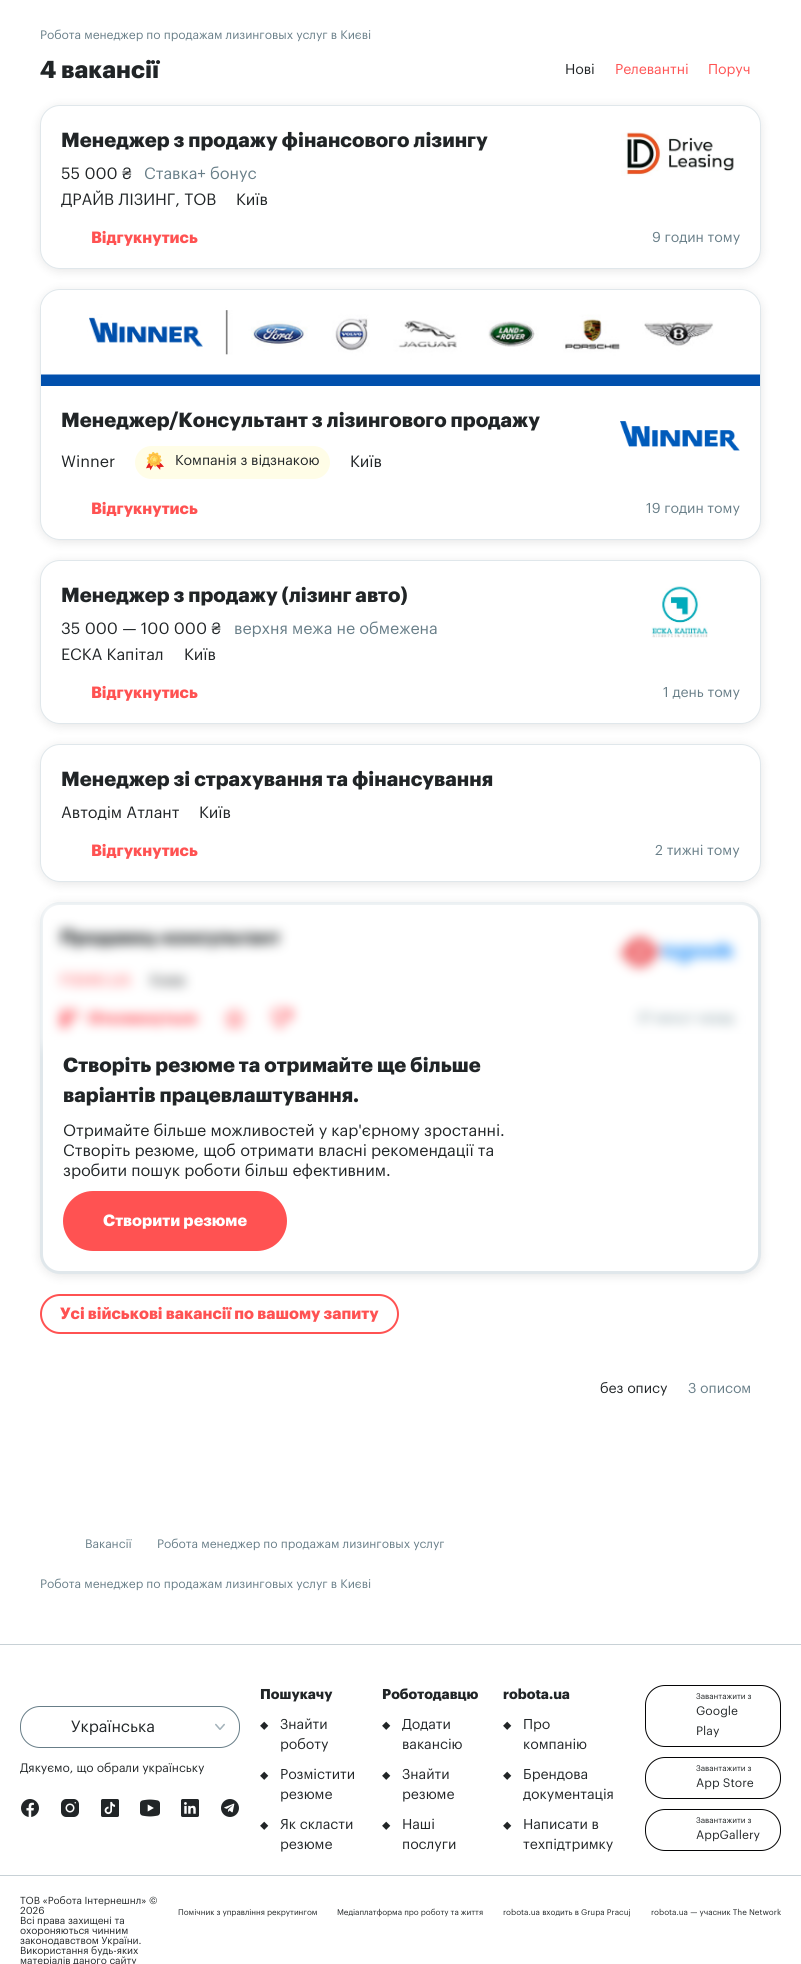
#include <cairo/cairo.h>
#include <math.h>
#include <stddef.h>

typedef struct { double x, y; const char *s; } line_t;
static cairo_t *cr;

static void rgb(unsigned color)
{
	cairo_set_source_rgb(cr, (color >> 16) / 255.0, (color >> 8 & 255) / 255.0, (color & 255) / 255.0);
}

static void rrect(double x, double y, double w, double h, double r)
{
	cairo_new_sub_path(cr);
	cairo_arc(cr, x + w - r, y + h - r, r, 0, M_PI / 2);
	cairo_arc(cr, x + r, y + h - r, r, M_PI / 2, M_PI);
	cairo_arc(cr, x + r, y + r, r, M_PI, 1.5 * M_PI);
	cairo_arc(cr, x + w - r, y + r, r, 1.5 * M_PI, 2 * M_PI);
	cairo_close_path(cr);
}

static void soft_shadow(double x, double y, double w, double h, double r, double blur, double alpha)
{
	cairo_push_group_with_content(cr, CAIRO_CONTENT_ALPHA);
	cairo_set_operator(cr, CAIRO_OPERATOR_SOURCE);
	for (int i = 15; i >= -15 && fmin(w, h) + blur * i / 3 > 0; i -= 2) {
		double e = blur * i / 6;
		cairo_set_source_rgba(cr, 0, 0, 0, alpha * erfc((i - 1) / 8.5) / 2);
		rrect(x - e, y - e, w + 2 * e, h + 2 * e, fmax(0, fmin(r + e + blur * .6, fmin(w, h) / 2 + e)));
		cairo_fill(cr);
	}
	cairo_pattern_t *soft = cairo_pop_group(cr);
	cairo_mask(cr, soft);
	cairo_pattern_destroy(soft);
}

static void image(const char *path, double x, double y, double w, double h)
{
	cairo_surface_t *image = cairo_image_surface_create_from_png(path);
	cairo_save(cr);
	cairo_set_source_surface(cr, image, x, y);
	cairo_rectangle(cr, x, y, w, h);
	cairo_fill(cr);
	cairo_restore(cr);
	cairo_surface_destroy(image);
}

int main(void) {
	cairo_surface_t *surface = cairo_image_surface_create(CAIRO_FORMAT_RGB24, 801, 1964);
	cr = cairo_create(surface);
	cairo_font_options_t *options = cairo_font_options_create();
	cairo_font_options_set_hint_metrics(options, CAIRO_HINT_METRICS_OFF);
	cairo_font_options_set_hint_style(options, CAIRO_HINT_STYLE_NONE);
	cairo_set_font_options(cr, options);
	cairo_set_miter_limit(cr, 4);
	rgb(0xffffff);
	cairo_paint(cr);
	rgb(0x050506);
	soft_shadow(40, 107, 721, 164, 20, 5, 0.1);
	rgb(0xffffff);
	rrect(40.5, 105.5, 720, 163, 19.5);
	cairo_fill_preserve(cr);
	rgb(0xe0e7eb);
	cairo_set_line_width(cr, 1);
	cairo_stroke(cr);
	image("img/1.png", 621, 132, 113, 44);
	rgb(0x050506);
	soft_shadow(40, 291, 721, 251, 20, 5, 0.1);
	rgb(0xffffff);
	rrect(40.5, 289.5, 720, 250, 19.5);
	cairo_fill_preserve(cr);
	rgb(0xe0e7eb);
	cairo_stroke(cr);
	image("img/2.png", 41, 305, 719, 81);
	rgb(0xfffde7);
	rrect(135, 446, 195, 33, 16.5);
	cairo_fill(cr);
	image("img/3.png", 146, 452, 18, 19);
	image("img/4.png", 620, 421, 120, 30);
	rgb(0x050506);
	soft_shadow(40, 562, 721, 164, 20, 5, 0.1);
	rgb(0xffffff);
	rrect(40.5, 560.5, 720, 163, 19.5);
	cairo_fill_preserve(cr);
	rgb(0xe0e7eb);
	cairo_stroke(cr);
	image("img/5.png", 651, 586, 57, 52);
	rgb(0x050506);
	soft_shadow(40, 746, 721, 138, 20, 5, 0.1);
	rgb(0xffffff);
	rrect(40.5, 744.5, 720, 137, 19.5);
	cairo_fill_preserve(cr);
	rgb(0xe0e7eb);
	cairo_stroke(cr);
	rgb(0x050506);
	soft_shadow(40, 904, 721, 372, 20, 5, 0.1);
	rgb(0xffffff);
	rrect(41.5, 903.5, 718, 369, 18.5);
	cairo_fill_preserve(cr);
	rgb(0xe0e7eb);
	cairo_set_line_width(cr, 3);
	cairo_stroke(cr);
	rgb(0xff5252);
	rrect(63, 1191, 224, 60, 30);
	cairo_fill(cr);
	rrect(41, 1295, 357, 38, 19);
	cairo_set_line_width(cr, 2);
	cairo_stroke(cr);
	rgb(0xc8d1d6);
	cairo_rectangle(cr, 0, 1644, 801, 1);
	cairo_fill(cr);
	rrect(20.5, 1706.5, 219, 41, 19.5);
	rgb(0x687e88);
	cairo_set_line_width(cr, 1);
	cairo_stroke(cr);
	image("img/7.png", 215, 1723, 10, 7);
	image("img/8.png", 21, 1799, 18, 18);
	image("img/9.png", 61, 1799, 18, 18);
	image("img/10.png", 101, 1799, 18, 18);
	image("img/11.png", 140, 1799, 20, 18);
	image("img/12.png", 181, 1799, 18, 18);
	image("img/13.png", 221, 1799, 18, 18);
	rrect(645.5, 1685.5, 135, 61, 19.5);
	rgb(0x050506);
	cairo_stroke(cr);
	rrect(645.5, 1757.5, 135, 41, 19.5);
	cairo_stroke(cr);
	rrect(645.5, 1809.5, 135, 41, 19.5);
	cairo_stroke(cr);
	rgb(0xc8d1d6);
	cairo_rectangle(cr, 0, 1875, 801, 1);
	cairo_fill(cr);
	cairo_select_font_face(cr, "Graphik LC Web", CAIRO_FONT_SLANT_NORMAL, CAIRO_FONT_WEIGHT_NORMAL);
	cairo_set_font_size(cr, 12);
	rgb(0x687e88);
	cairo_move_to(cr, 40, 39);
	cairo_show_text(cr, "Робота менеджер по продажам лизинговых услуг в Києві");
	cairo_select_font_face(cr, "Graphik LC", CAIRO_FONT_SLANT_NORMAL, CAIRO_FONT_WEIGHT_BOLD);
	cairo_set_font_size(cr, 24);
	rgb(0x212527);
	cairo_move_to(cr, 40, 78);
	cairo_show_text(cr, "4 вакансії");
	cairo_select_font_face(cr, "Graphik LC Web", CAIRO_FONT_SLANT_NORMAL, CAIRO_FONT_WEIGHT_NORMAL);
	cairo_set_font_size(cr, 14);
	cairo_move_to(cr, 565, 74);
	cairo_show_text(cr, "Нові");
	rgb(0xff5252);
	cairo_move_to(cr, 615, 74);
	cairo_show_text(cr, "Релевантні");
	cairo_move_to(cr, 708, 74);
	cairo_show_text(cr, "Поруч");
	cairo_select_font_face(cr, "Graphik LC", CAIRO_FONT_SLANT_NORMAL, CAIRO_FONT_WEIGHT_BOLD);
	cairo_set_font_size(cr, 20);
	rgb(0x212527);
	cairo_move_to(cr, 61, 147);
	cairo_show_text(cr, "Менеджер з продажу фінансового лізингу");
	cairo_select_font_face(cr, "Graphik LC Web", CAIRO_FONT_SLANT_NORMAL, CAIRO_FONT_WEIGHT_NORMAL);
	cairo_set_font_size(cr, 16);
	cairo_move_to(cr, 61, 179);
	cairo_show_text(cr, "55 000 ₴");
	rgb(0x687e88);
	cairo_move_to(cr, 144, 179);
	cairo_show_text(cr, "Ставка+ бонус");
	rgb(0x212527);
	cairo_move_to(cr, 61, 205);
	cairo_show_text(cr, "ДРАЙВ ЛІЗИНГ, ТОВ");
	cairo_move_to(cr, 236, 205);
	cairo_show_text(cr, "Київ");
	cairo_select_font_face(cr, "Graphik LC", CAIRO_FONT_SLANT_NORMAL, CAIRO_FONT_WEIGHT_BOLD);
	rgb(0xff5252);
	cairo_move_to(cr, 91, 243);
	cairo_show_text(cr, "Відгукнутись");
	cairo_select_font_face(cr, "Graphik LC Web", CAIRO_FONT_SLANT_NORMAL, CAIRO_FONT_WEIGHT_NORMAL);
	cairo_set_font_size(cr, 14);
	rgb(0x687e88);
	cairo_move_to(cr, 652, 242);
	cairo_show_text(cr, "9 годин тому");
	cairo_select_font_face(cr, "Graphik LC", CAIRO_FONT_SLANT_NORMAL, CAIRO_FONT_WEIGHT_BOLD);
	cairo_set_font_size(cr, 20);
	rgb(0x212527);
	cairo_move_to(cr, 61, 427);
	cairo_show_text(cr, "Менеджер/Консультант з лізингового продажу");
	cairo_select_font_face(cr, "Graphik LC Web", CAIRO_FONT_SLANT_NORMAL, CAIRO_FONT_WEIGHT_NORMAL);
	cairo_set_font_size(cr, 16);
	cairo_move_to(cr, 61, 467);
	cairo_show_text(cr, "Winner");
	cairo_set_font_size(cr, 14);
	cairo_move_to(cr, 175, 465);
	cairo_show_text(cr, "Компанія з відзнакою");
	cairo_set_font_size(cr, 16);
	cairo_move_to(cr, 350, 467);
	cairo_show_text(cr, "Київ");
	cairo_select_font_face(cr, "Graphik LC", CAIRO_FONT_SLANT_NORMAL, CAIRO_FONT_WEIGHT_BOLD);
	rgb(0xff5252);
	cairo_move_to(cr, 91, 514);
	cairo_show_text(cr, "Відгукнутись");
	cairo_select_font_face(cr, "Graphik LC Web", CAIRO_FONT_SLANT_NORMAL, CAIRO_FONT_WEIGHT_NORMAL);
	cairo_set_font_size(cr, 14);
	rgb(0x687e88);
	cairo_move_to(cr, 646, 513);
	cairo_show_text(cr, "19 годин тому");
	cairo_select_font_face(cr, "Graphik LC", CAIRO_FONT_SLANT_NORMAL, CAIRO_FONT_WEIGHT_BOLD);
	cairo_set_font_size(cr, 20);
	rgb(0x212527);
	cairo_move_to(cr, 61, 602);
	cairo_show_text(cr, "Менеджер з продажу (лізинг авто)");
	cairo_select_font_face(cr, "Graphik LC Web", CAIRO_FONT_SLANT_NORMAL, CAIRO_FONT_WEIGHT_NORMAL);
	cairo_set_font_size(cr, 16);
	cairo_move_to(cr, 61, 634);
	cairo_show_text(cr, "35 000 — 100 000 ₴");
	rgb(0x687e88);
	cairo_move_to(cr, 234, 634);
	cairo_show_text(cr, "верхня межа не обмежена");
	rgb(0x212527);
	cairo_move_to(cr, 61, 660);
	cairo_show_text(cr, "ЕСКА Капітал");
	cairo_move_to(cr, 184, 660);
	cairo_show_text(cr, "Київ");
	cairo_select_font_face(cr, "Graphik LC", CAIRO_FONT_SLANT_NORMAL, CAIRO_FONT_WEIGHT_BOLD);
	rgb(0xff5252);
	cairo_move_to(cr, 91, 698);
	cairo_show_text(cr, "Відгукнутись");
	cairo_select_font_face(cr, "Graphik LC Web", CAIRO_FONT_SLANT_NORMAL, CAIRO_FONT_WEIGHT_NORMAL);
	cairo_set_font_size(cr, 14);
	rgb(0x687e88);
	cairo_move_to(cr, 663, 697);
	cairo_show_text(cr, "1 день тому");
	cairo_select_font_face(cr, "Graphik LC", CAIRO_FONT_SLANT_NORMAL, CAIRO_FONT_WEIGHT_BOLD);
	cairo_set_font_size(cr, 20);
	rgb(0x212527);
	cairo_move_to(cr, 61, 786);
	cairo_show_text(cr, "Менеджер зі страхування та фінансування");
	cairo_select_font_face(cr, "Graphik LC Web", CAIRO_FONT_SLANT_NORMAL, CAIRO_FONT_WEIGHT_NORMAL);
	cairo_set_font_size(cr, 16);
	cairo_move_to(cr, 61, 818);
	cairo_show_text(cr, "Автодім Атлант");
	cairo_move_to(cr, 199, 818);
	cairo_show_text(cr, "Київ");
	cairo_select_font_face(cr, "Graphik LC", CAIRO_FONT_SLANT_NORMAL, CAIRO_FONT_WEIGHT_BOLD);
	rgb(0xff5252);
	cairo_move_to(cr, 91, 856);
	cairo_show_text(cr, "Відгукнутись");
	cairo_select_font_face(cr, "Graphik LC Web", CAIRO_FONT_SLANT_NORMAL, CAIRO_FONT_WEIGHT_NORMAL);
	cairo_set_font_size(cr, 14);
	rgb(0x687e88);
	cairo_move_to(cr, 655, 855);
	cairo_show_text(cr, "2 тижні тому");
	cairo_select_font_face(cr, "Graphik LC", CAIRO_FONT_SLANT_NORMAL, CAIRO_FONT_WEIGHT_BOLD);
	cairo_set_font_size(cr, 20);
	rgb(0x212527);
	cairo_move_to(cr, 63, 1072);
	cairo_show_text(cr, "Створіть резюме та отримайте ще більше");
	image("img/6.png", 40, 902, 717, 157);
	cairo_move_to(cr, 63, 1102);
	cairo_show_text(cr, "варіантів працевлаштування.");
	cairo_select_font_face(cr, "Graphik LC Web", CAIRO_FONT_SLANT_NORMAL, CAIRO_FONT_WEIGHT_NORMAL);
	cairo_set_font_size(cr, 16);
	{
		static const line_t items[] = {
			{63, 1136, "Отримайте більше можливостей у кар'єрному зростанні."},
			{63, 1156, "Створіть резюме, щоб отримати власні рекомендації та"},
			{63, 1176, "зробити пошук роботи більш ефективним."},
		};
		for (size_t i = 0; i < sizeof items / sizeof *items; i++) {
			cairo_move_to(cr, items[i].x, items[i].y);
			cairo_show_text(cr, items[i].s);
		}
	}
	cairo_select_font_face(cr, "Graphik LC", CAIRO_FONT_SLANT_NORMAL, CAIRO_FONT_WEIGHT_BOLD);
	rgb(0xffffff);
	cairo_move_to(cr, 103, 1226);
	cairo_show_text(cr, "Створити резюме");
	rgb(0xff5252);
	cairo_move_to(cr, 60, 1319);
	cairo_show_text(cr, "Усі військові вакансії по вашому запиту");
	cairo_select_font_face(cr, "Graphik LC Web", CAIRO_FONT_SLANT_NORMAL, CAIRO_FONT_WEIGHT_NORMAL);
	cairo_set_font_size(cr, 14);
	rgb(0x212527);
	cairo_move_to(cr, 600, 1393);
	cairo_show_text(cr, "без опису");
	rgb(0x687e88);
	cairo_move_to(cr, 688, 1393);
	cairo_show_text(cr, "З описом");
	cairo_set_font_size(cr, 12);
	{
		static const line_t items[] = {
			{85, 1548, "Вакансії"},
			{157, 1548, "Робота менеджер по продажам лизинговых услуг"},
			{40, 1588, "Робота менеджер по продажам лизинговых услуг в Києві"},
		};
		for (size_t i = 0; i < sizeof items / sizeof *items; i++) {
			cairo_move_to(cr, items[i].x, items[i].y);
			cairo_show_text(cr, items[i].s);
		}
	}
	cairo_set_font_size(cr, 16);
	rgb(0x212527);
	cairo_move_to(cr, 71, 1732);
	cairo_show_text(cr, "Українська");
	cairo_set_font_size(cr, 12);
	cairo_move_to(cr, 20, 1772);
	cairo_show_text(cr, "Дякуємо, що обрали українську");
	cairo_select_font_face(cr, "Graphik LC", CAIRO_FONT_SLANT_NORMAL, CAIRO_FONT_WEIGHT_BOLD);
	cairo_set_font_size(cr, 14);
	cairo_move_to(cr, 260, 1699);
	cairo_show_text(cr, "Пошукачу");
	cairo_select_font_face(cr, "FreeSans", CAIRO_FONT_SLANT_NORMAL, CAIRO_FONT_WEIGHT_NORMAL);
	cairo_set_font_size(cr, 12);
	cairo_move_to(cr, 260, 1729);
	cairo_show_text(cr, "⬥");
	cairo_select_font_face(cr, "Graphik LC Web", CAIRO_FONT_SLANT_NORMAL, CAIRO_FONT_WEIGHT_NORMAL);
	cairo_set_font_size(cr, 14);
	cairo_move_to(cr, 280, 1729);
	cairo_show_text(cr, "Знайти");
	cairo_move_to(cr, 280, 1749);
	cairo_show_text(cr, "роботу");
	cairo_select_font_face(cr, "FreeSans", CAIRO_FONT_SLANT_NORMAL, CAIRO_FONT_WEIGHT_NORMAL);
	cairo_set_font_size(cr, 12);
	cairo_move_to(cr, 260, 1779);
	cairo_show_text(cr, "⬥");
	cairo_select_font_face(cr, "Graphik LC Web", CAIRO_FONT_SLANT_NORMAL, CAIRO_FONT_WEIGHT_NORMAL);
	cairo_set_font_size(cr, 14);
	cairo_move_to(cr, 280, 1779);
	cairo_show_text(cr, "Розмістити");
	cairo_move_to(cr, 280, 1799);
	cairo_show_text(cr, "резюме");
	cairo_select_font_face(cr, "FreeSans", CAIRO_FONT_SLANT_NORMAL, CAIRO_FONT_WEIGHT_NORMAL);
	cairo_set_font_size(cr, 12);
	cairo_move_to(cr, 260, 1829);
	cairo_show_text(cr, "⬥");
	cairo_select_font_face(cr, "Graphik LC Web", CAIRO_FONT_SLANT_NORMAL, CAIRO_FONT_WEIGHT_NORMAL);
	cairo_set_font_size(cr, 14);
	cairo_move_to(cr, 280, 1829);
	cairo_show_text(cr, "Як скласти");
	cairo_move_to(cr, 280, 1849);
	cairo_show_text(cr, "резюме");
	cairo_select_font_face(cr, "Graphik LC", CAIRO_FONT_SLANT_NORMAL, CAIRO_FONT_WEIGHT_BOLD);
	cairo_move_to(cr, 382, 1699);
	cairo_show_text(cr, "Роботодавцю");
	cairo_select_font_face(cr, "FreeSans", CAIRO_FONT_SLANT_NORMAL, CAIRO_FONT_WEIGHT_NORMAL);
	cairo_set_font_size(cr, 12);
	cairo_move_to(cr, 382, 1729);
	cairo_show_text(cr, "⬥");
	cairo_select_font_face(cr, "Graphik LC Web", CAIRO_FONT_SLANT_NORMAL, CAIRO_FONT_WEIGHT_NORMAL);
	cairo_set_font_size(cr, 14);
	cairo_move_to(cr, 402, 1729);
	cairo_show_text(cr, "Додати");
	cairo_move_to(cr, 402, 1749);
	cairo_show_text(cr, "вакансію");
	cairo_select_font_face(cr, "FreeSans", CAIRO_FONT_SLANT_NORMAL, CAIRO_FONT_WEIGHT_NORMAL);
	cairo_set_font_size(cr, 12);
	cairo_move_to(cr, 382, 1779);
	cairo_show_text(cr, "⬥");
	cairo_select_font_face(cr, "Graphik LC Web", CAIRO_FONT_SLANT_NORMAL, CAIRO_FONT_WEIGHT_NORMAL);
	cairo_set_font_size(cr, 14);
	cairo_move_to(cr, 402, 1779);
	cairo_show_text(cr, "Знайти");
	cairo_move_to(cr, 402, 1799);
	cairo_show_text(cr, "резюме");
	cairo_select_font_face(cr, "FreeSans", CAIRO_FONT_SLANT_NORMAL, CAIRO_FONT_WEIGHT_NORMAL);
	cairo_set_font_size(cr, 12);
	cairo_move_to(cr, 382, 1829);
	cairo_show_text(cr, "⬥");
	cairo_select_font_face(cr, "Graphik LC Web", CAIRO_FONT_SLANT_NORMAL, CAIRO_FONT_WEIGHT_NORMAL);
	cairo_set_font_size(cr, 14);
	cairo_move_to(cr, 402, 1829);
	cairo_show_text(cr, "Наші");
	cairo_move_to(cr, 402, 1849);
	cairo_show_text(cr, "послуги");
	cairo_select_font_face(cr, "Graphik LC", CAIRO_FONT_SLANT_NORMAL, CAIRO_FONT_WEIGHT_BOLD);
	cairo_move_to(cr, 503, 1699);
	cairo_show_text(cr, "robota.ua");
	cairo_select_font_face(cr, "FreeSans", CAIRO_FONT_SLANT_NORMAL, CAIRO_FONT_WEIGHT_NORMAL);
	cairo_set_font_size(cr, 12);
	cairo_move_to(cr, 503, 1729);
	cairo_show_text(cr, "⬥");
	cairo_select_font_face(cr, "Graphik LC Web", CAIRO_FONT_SLANT_NORMAL, CAIRO_FONT_WEIGHT_NORMAL);
	cairo_set_font_size(cr, 14);
	cairo_move_to(cr, 523, 1729);
	cairo_show_text(cr, "Про");
	cairo_move_to(cr, 523, 1749);
	cairo_show_text(cr, "компанію");
	cairo_select_font_face(cr, "FreeSans", CAIRO_FONT_SLANT_NORMAL, CAIRO_FONT_WEIGHT_NORMAL);
	cairo_set_font_size(cr, 12);
	cairo_move_to(cr, 503, 1779);
	cairo_show_text(cr, "⬥");
	cairo_select_font_face(cr, "Graphik LC Web", CAIRO_FONT_SLANT_NORMAL, CAIRO_FONT_WEIGHT_NORMAL);
	cairo_set_font_size(cr, 14);
	cairo_move_to(cr, 523, 1779);
	cairo_show_text(cr, "Брендова");
	cairo_move_to(cr, 523, 1799);
	cairo_show_text(cr, "документація");
	cairo_select_font_face(cr, "FreeSans", CAIRO_FONT_SLANT_NORMAL, CAIRO_FONT_WEIGHT_NORMAL);
	cairo_set_font_size(cr, 12);
	cairo_move_to(cr, 503, 1829);
	cairo_show_text(cr, "⬥");
	cairo_select_font_face(cr, "Graphik LC Web", CAIRO_FONT_SLANT_NORMAL, CAIRO_FONT_WEIGHT_NORMAL);
	cairo_set_font_size(cr, 14);
	cairo_move_to(cr, 523, 1829);
	cairo_show_text(cr, "Написати в");
	cairo_move_to(cr, 523, 1849);
	cairo_show_text(cr, "техпідтримку");
	cairo_set_font_size(cr, 8);
	cairo_move_to(cr, 696, 1699);
	cairo_show_text(cr, "Завантажити з");
	cairo_set_font_size(cr, 12);
	cairo_move_to(cr, 696, 1715);
	cairo_show_text(cr, "Google");
	cairo_move_to(cr, 696, 1735);
	cairo_show_text(cr, "Play");
	cairo_set_font_size(cr, 8);
	cairo_move_to(cr, 696, 1771);
	cairo_show_text(cr, "Завантажити з");
	cairo_set_font_size(cr, 12);
	cairo_move_to(cr, 696, 1787);
	cairo_show_text(cr, "App Store");
	cairo_set_font_size(cr, 8);
	cairo_move_to(cr, 696, 1823);
	cairo_show_text(cr, "Завантажити з");
	cairo_set_font_size(cr, 12);
	cairo_move_to(cr, 696, 1839);
	cairo_show_text(cr, "AppGallery");
	cairo_set_font_size(cr, 10);
	{
		static const line_t items[] = {
			{20, 1904, "ТОВ «Робота Інтернешнл» ©"},
			{20, 1914, "2026"},
			{20, 1924, "Всі права захищені та"},
			{20, 1934, "охороняються чинним"},
			{20, 1944, "законодавством України."},
			{20, 1954, "Використання будь-яких"},
			{20, 1964, "матеріалів даного сайту"},
		};
		for (size_t i = 0; i < sizeof items / sizeof *items; i++) {
			cairo_move_to(cr, items[i].x, items[i].y);
			cairo_show_text(cr, items[i].s);
		}
	}
	cairo_set_font_size(cr, 8);
	{
		static const line_t items[] = {
			{178, 1915, "Помічник з управління рекрутингом"},
			{337, 1915, "Медіаплатформа про роботу та життя"},
			{503, 1915, "robota.ua входить в Grupa Pracuj"},
			{651, 1915, "robota.ua — учасник The Network"},
		};
		for (size_t i = 0; i < sizeof items / sizeof *items; i++) {
			cairo_move_to(cr, items[i].x, items[i].y);
			cairo_show_text(cr, items[i].s);
		}
	}
	cairo_surface_write_to_png(surface, "page.png");
	cairo_font_options_destroy(options);
	cairo_destroy(cr);
	cairo_surface_destroy(surface);
	return 0;
}
